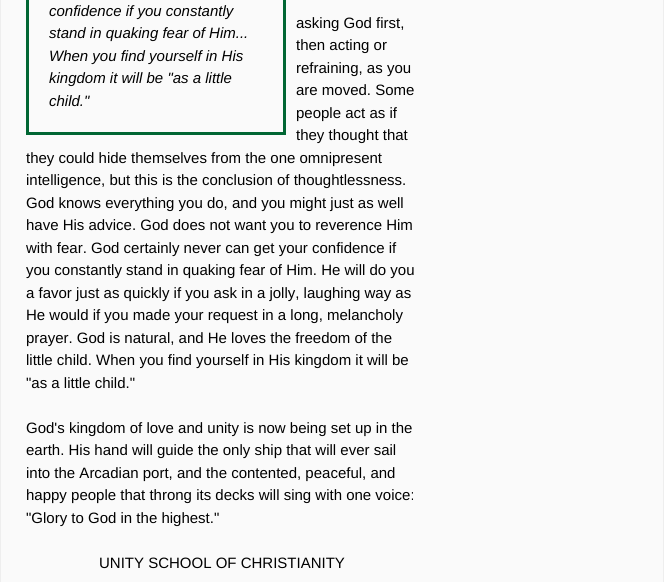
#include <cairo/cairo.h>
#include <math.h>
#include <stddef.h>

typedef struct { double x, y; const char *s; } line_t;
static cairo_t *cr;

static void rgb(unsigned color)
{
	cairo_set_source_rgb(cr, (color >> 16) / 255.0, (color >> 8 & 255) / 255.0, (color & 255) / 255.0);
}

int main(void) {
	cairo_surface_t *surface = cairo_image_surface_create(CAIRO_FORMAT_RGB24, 664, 582);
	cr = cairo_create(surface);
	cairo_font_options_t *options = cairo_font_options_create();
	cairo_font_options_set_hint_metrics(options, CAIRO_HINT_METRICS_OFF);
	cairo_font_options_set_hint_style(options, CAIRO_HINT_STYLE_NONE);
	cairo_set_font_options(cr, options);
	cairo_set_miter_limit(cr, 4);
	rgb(0xfafafa);
	cairo_paint(cr);
	rgb(0xeeeeee);
	cairo_rectangle(cr, 663, 0, 1, 582);
	cairo_fill(cr);
	cairo_rectangle(cr, 0, 0, 1, 582);
	cairo_fill(cr);
	cairo_rectangle(cr, 27.5, -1.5, 257, 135);
	rgb(0x006633);
	cairo_set_line_width(cr, 3);
	cairo_stroke(cr);
	cairo_select_font_face(cr, "Liberation Sans", CAIRO_FONT_SLANT_ITALIC, CAIRO_FONT_WEIGHT_NORMAL);
	cairo_set_font_size(cr, 15);
	rgb(0x000000);
	{
		static const line_t items[] = {
			{49, 16, "confidence if you constantly"},
			{49, 38, "stand in quaking fear of Him..."},
			{49, 61, "When you find yourself in His"},
			{49, 83, "kingdom it will be \"as a little"},
			{49, 106, "child.\""},
		};
		for (size_t i = 0; i < sizeof items / sizeof *items; i++) {
			cairo_move_to(cr, items[i].x, items[i].y);
			cairo_show_text(cr, items[i].s);
		}
	}
	cairo_select_font_face(cr, "Liberation Sans", CAIRO_FONT_SLANT_NORMAL, CAIRO_FONT_WEIGHT_NORMAL);
	{
		static const line_t items[] = {
			{296, 28, "asking God first,"},
			{296, 50, "then acting or"},
			{296, 73, "refraining, as you"},
			{296, 95, "are moved. Some"},
			{296, 118, "people act as if"},
			{296, 140, "they thought that"},
			{26, 163, "they could hide themselves from the one omnipresent"},
			{26, 185, "intelligence, but this is the conclusion of thoughtlessness."},
			{26, 208, "God knows everything you do, and you might just as well"},
			{26, 230, "have His advice. God does not want you to reverence Him"},
			{26, 253, "with fear. God certainly never can get your confidence if"},
			{26, 275, "you constantly stand in quaking fear of Him. He will do you"},
			{26, 298, "a favor just as quickly if you ask in a jolly, laughing way as"},
			{26, 320, "He would if you made your request in a long, melancholy"},
			{26, 343, "prayer. God is natural, and He loves the freedom of the"},
			{26, 365, "little child. When you find yourself in His kingdom it will be"},
			{26, 388, "\"as a little child.\""},
			{26, 433, "God's kingdom of love and unity is now being set up in the"},
			{26, 455, "earth. His hand will guide the only ship that will ever sail"},
			{26, 478, "into the Arcadian port, and the contented, peaceful, and"},
			{26, 500, "happy people that throng its decks will sing with one voice:"},
			{26, 523, "\"Glory to God in the highest.\""},
			{99, 568, "UNITY SCHOOL OF CHRISTIANITY"},
		};
		for (size_t i = 0; i < sizeof items / sizeof *items; i++) {
			cairo_move_to(cr, items[i].x, items[i].y);
			cairo_show_text(cr, items[i].s);
		}
	}
	cairo_surface_write_to_png(surface, "page.png");
	cairo_font_options_destroy(options);
	cairo_destroy(cr);
	cairo_surface_destroy(surface);
	return 0;
}
